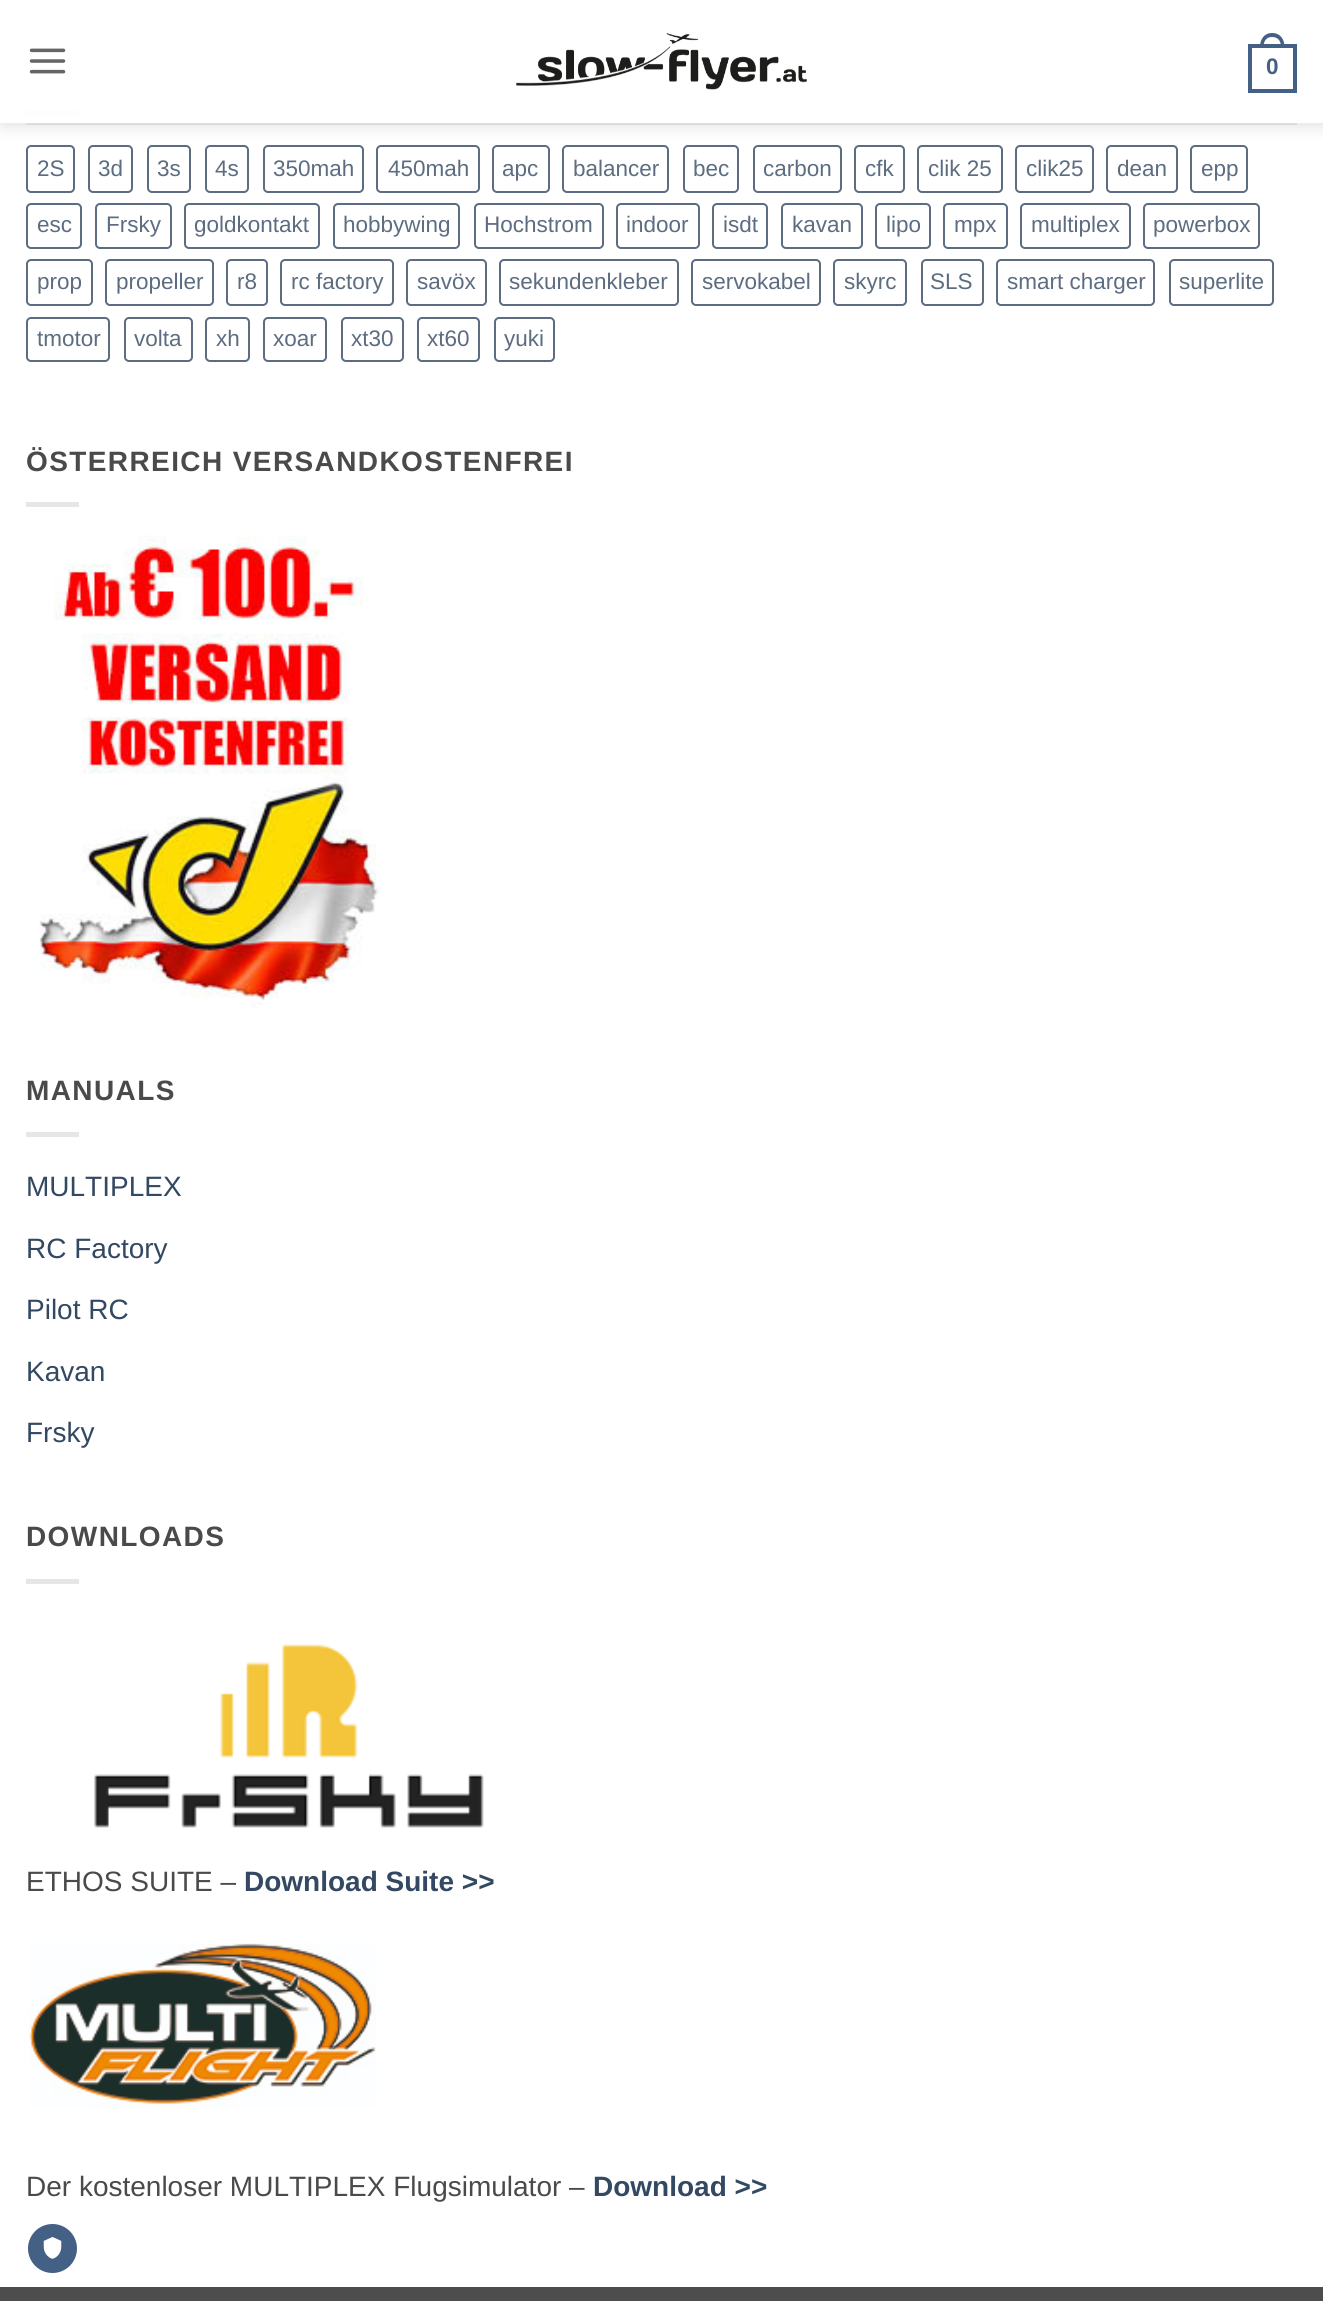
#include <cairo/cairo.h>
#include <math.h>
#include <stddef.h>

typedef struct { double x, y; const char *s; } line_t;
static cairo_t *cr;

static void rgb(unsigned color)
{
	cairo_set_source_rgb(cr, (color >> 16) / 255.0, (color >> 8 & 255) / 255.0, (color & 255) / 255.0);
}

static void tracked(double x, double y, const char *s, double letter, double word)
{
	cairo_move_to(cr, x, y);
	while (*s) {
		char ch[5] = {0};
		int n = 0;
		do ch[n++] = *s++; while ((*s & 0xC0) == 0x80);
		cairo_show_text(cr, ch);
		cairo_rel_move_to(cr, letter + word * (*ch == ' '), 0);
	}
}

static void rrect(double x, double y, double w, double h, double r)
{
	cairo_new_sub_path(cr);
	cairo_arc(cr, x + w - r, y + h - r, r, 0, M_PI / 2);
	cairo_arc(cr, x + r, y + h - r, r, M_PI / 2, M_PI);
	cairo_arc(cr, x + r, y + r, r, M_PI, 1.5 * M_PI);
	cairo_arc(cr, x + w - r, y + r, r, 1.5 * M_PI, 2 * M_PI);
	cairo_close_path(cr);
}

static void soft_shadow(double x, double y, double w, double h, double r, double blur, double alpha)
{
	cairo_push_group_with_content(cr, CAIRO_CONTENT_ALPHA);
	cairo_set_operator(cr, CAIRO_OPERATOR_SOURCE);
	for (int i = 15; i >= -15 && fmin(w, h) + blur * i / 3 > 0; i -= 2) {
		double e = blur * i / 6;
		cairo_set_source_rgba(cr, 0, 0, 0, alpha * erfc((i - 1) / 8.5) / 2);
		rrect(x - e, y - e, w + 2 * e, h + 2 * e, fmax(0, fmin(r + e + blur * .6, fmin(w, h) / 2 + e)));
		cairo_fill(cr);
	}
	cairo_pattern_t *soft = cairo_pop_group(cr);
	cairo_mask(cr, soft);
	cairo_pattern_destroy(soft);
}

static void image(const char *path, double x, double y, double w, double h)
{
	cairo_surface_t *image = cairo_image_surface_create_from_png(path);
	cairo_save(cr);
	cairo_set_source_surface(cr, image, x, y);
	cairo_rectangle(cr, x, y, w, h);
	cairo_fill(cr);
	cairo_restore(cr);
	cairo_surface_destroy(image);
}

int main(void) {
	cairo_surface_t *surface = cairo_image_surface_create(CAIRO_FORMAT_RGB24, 1323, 2301);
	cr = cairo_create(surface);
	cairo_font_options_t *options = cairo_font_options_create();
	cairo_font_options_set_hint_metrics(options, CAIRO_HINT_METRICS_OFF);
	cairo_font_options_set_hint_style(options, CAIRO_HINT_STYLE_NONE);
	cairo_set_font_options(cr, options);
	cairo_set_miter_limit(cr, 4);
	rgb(0xffffff);
	cairo_paint(cr);
	rgb(0xe6e6e6);
	cairo_rectangle(cr, 26, 110, 53, 5);
	cairo_fill(cr);
	rrect(27, 146, 47, 46, 4);
	rgb(0x5c6d81);
	cairo_stroke(cr);
	rrect(89, 146, 43, 46, 4);
	cairo_stroke(cr);
	rrect(148, 146, 42, 46, 4);
	cairo_stroke(cr);
	rrect(206, 146, 42, 46, 4);
	cairo_stroke(cr);
	rrect(264, 146, 99, 46, 4);
	cairo_stroke(cr);
	rrect(377, 146, 102, 46, 4);
	cairo_stroke(cr);
	rrect(493, 146, 56, 46, 4);
	cairo_stroke(cr);
	rrect(563, 146, 105, 46, 4);
	cairo_stroke(cr);
	rrect(684, 146, 54, 46, 4);
	cairo_stroke(cr);
	rrect(754, 146, 87, 46, 4);
	cairo_stroke(cr);
	rrect(855, 146, 49, 46, 4);
	cairo_stroke(cr);
	rrect(918, 146, 84, 46, 4);
	cairo_stroke(cr);
	rrect(1016, 146, 77, 46, 4);
	cairo_stroke(cr);
	rrect(1107, 146, 70, 46, 4);
	cairo_stroke(cr);
	rrect(1191, 146, 56, 46, 4);
	cairo_stroke(cr);
	cairo_save(cr);
	cairo_set_fill_rule(cr, CAIRO_FILL_RULE_EVEN_ODD);
	cairo_new_path(cr);
	cairo_move_to(cr, 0, 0);
	cairo_line_to(cr, 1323, 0);
	cairo_line_to(cr, 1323, 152);
	cairo_line_to(cr, 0, 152);
	cairo_close_path(cr);
	cairo_move_to(cr, 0, 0);
	cairo_line_to(cr, 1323, 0);
	cairo_line_to(cr, 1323, 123);
	cairo_line_to(cr, 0, 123);
	cairo_close_path(cr);
	cairo_clip(cr);
	rgb(0x000000);
	soft_shadow(2, 2, 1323, 122, 0, 9, 0.15);
	cairo_restore(cr);
	image("img/1.png", 29, 48, 37, 26);
	image("img/2.png", 516, 33, 291, 57);
	cairo_rectangle(cr, 1250, 46, 45, 45);
	rgb(0x446084);
	cairo_set_line_width(cr, 4);
	cairo_stroke(cr);
	cairo_set_fill_rule(cr, CAIRO_FILL_RULE_EVEN_ODD);
	cairo_new_path(cr);
	cairo_move_to(cr, 1272, 33);
	cairo_curve_to(cr, 1280.5, 33, 1284.5, 39.5, 1284.5, 47);
	cairo_line_to(cr, 1260, 47);
	cairo_curve_to(cr, 1260, 39.5, 1264, 33, 1272, 33);
	cairo_close_path(cr);
	cairo_move_to(cr, 1272, 37);
	cairo_curve_to(cr, 1278.5, 37, 1281, 41.5, 1281, 47);
	cairo_line_to(cr, 1263.5, 47);
	cairo_curve_to(cr, 1263.5, 41.5, 1266, 37, 1272, 37);
	cairo_close_path(cr);
	cairo_fill(cr);
	rgb(0xdcdcdc);
	cairo_rectangle(cr, 26, 123, 1271, 2);
	cairo_fill(cr);
	cairo_set_source_rgba(cr, 1, 1, 1, 0.9);
	cairo_rectangle(cr, 0, 110, 1323, 13);
	cairo_fill(cr);
	rrect(27, 204, 54, 44, 4);
	rgb(0x5c6d81);
	cairo_set_line_width(cr, 2);
	cairo_stroke(cr);
	rrect(96, 204, 75, 44, 4);
	cairo_stroke(cr);
	rrect(185, 204, 134, 44, 4);
	cairo_stroke(cr);
	rrect(334, 204, 125, 44, 4);
	cairo_stroke(cr);
	rrect(475, 204, 128, 44, 4);
	cairo_stroke(cr);
	rrect(617, 204, 82, 44, 4);
	cairo_stroke(cr);
	rrect(713, 204, 54, 44, 4);
	cairo_stroke(cr);
	rrect(782, 204, 80, 44, 4);
	cairo_stroke(cr);
	rrect(876, 204, 54, 44, 4);
	cairo_stroke(cr);
	rrect(944, 204, 63, 44, 4);
	cairo_stroke(cr);
	rrect(1021, 204, 109, 44, 4);
	cairo_stroke(cr);
	rrect(1144, 204, 115, 44, 4);
	cairo_stroke(cr);
	rrect(27, 260, 65, 45, 4);
	cairo_stroke(cr);
	rrect(106, 260, 107, 45, 4);
	cairo_stroke(cr);
	rrect(227, 260, 40, 45, 4);
	cairo_stroke(cr);
	rrect(281, 260, 112, 45, 4);
	cairo_stroke(cr);
	rrect(407, 260, 79, 45, 4);
	cairo_stroke(cr);
	rrect(500, 260, 178, 45, 4);
	cairo_stroke(cr);
	rrect(692, 260, 128, 45, 4);
	cairo_stroke(cr);
	rrect(834, 260, 72, 45, 4);
	cairo_stroke(cr);
	rrect(922, 260, 61, 45, 4);
	cairo_stroke(cr);
	rrect(997, 260, 157, 45, 4);
	cairo_stroke(cr);
	rrect(1170, 260, 103, 45, 4);
	cairo_stroke(cr);
	rrect(27, 318, 82, 43, 4);
	cairo_stroke(cr);
	rrect(125, 318, 67, 43, 4);
	cairo_stroke(cr);
	rrect(206, 318, 43, 43, 4);
	cairo_stroke(cr);
	rrect(264, 318, 62, 43, 4);
	cairo_stroke(cr);
	rrect(342, 318, 61, 43, 4);
	cairo_stroke(cr);
	rrect(418, 318, 61, 43, 4);
	cairo_stroke(cr);
	rrect(495, 318, 59, 43, 4);
	cairo_stroke(cr);
	rgb(0xe6e6e6);
	cairo_rectangle(cr, 26, 502, 53, 5);
	cairo_fill(cr);
	image("img/3.png", 39, 535, 341, 473);
	cairo_rectangle(cr, 26, 1132, 53, 5);
	cairo_fill(cr);
	cairo_rectangle(cr, 26, 1579, 53, 5);
	cairo_fill(cr);
	image("img/4.png", 94, 1644, 390, 184);
	image("img/5.png", 29, 1943, 347, 165);
	rgb(0x4d4d4d);
	cairo_rectangle(cr, 0, 2287, 1323, 14);
	cairo_fill(cr);
	rgb(0x446084);
	cairo_arc(cr, 52.5, 2248.5, 24.5, 0, 2 * M_PI);
	cairo_fill(cr);
	image("img/6.png", 43, 2237, 19, 22);
	cairo_select_font_face(cr, "Liberation Sans", CAIRO_FONT_SLANT_NORMAL, CAIRO_FONT_WEIGHT_BOLD);
	cairo_set_font_size(cr, 22.5);
	cairo_move_to(cr, 1266, 74);
	cairo_show_text(cr, "0");
	cairo_select_font_face(cr, "Liberation Sans", CAIRO_FONT_SLANT_NORMAL, CAIRO_FONT_WEIGHT_NORMAL);
	rgb(0x5c6d81);
	{
		static const line_t items[] = {
			{37, 176, "2S"},
			{98, 176, "3d"},
			{157, 176, "3s"},
			{215, 176, "4s"},
			{273, 176, "350mah"},
			{388, 176, "450mah"},
			{502, 176, "apc"},
			{573, 176, "balancer"},
			{693, 176, "bec"},
			{763, 176, "carbon"},
			{865, 176, "cfk"},
			{928, 176, "clik 25"},
			{1026, 176, "clik25"},
			{1117, 176, "dean"},
			{1201, 176, "epp"},
			{37, 232, "esc"},
			{106, 232, "Frsky"},
			{194, 232, "goldkontakt"},
			{343, 232, "hobbywing"},
			{484, 232, "Hochstrom"},
			{626, 232, "indoor"},
			{723, 232, "isdt"},
			{792, 232, "kavan"},
			{886, 232, "lipo"},
			{954, 232, "mpx"},
			{1031, 232, "multiplex"},
			{1153, 232, "powerbox"},
			{37, 289, "prop"},
			{116, 289, "propeller"},
			{237, 289, "r8"},
			{291, 289, "rc factory"},
			{417, 289, "savöx"},
			{509, 289, "sekundenkleber"},
			{702, 289, "servokabel"},
			{844, 289, "skyrc"},
			{930, 289, "SLS"},
			{1007, 289, "smart charger"},
			{1179, 289, "superlite"},
			{37, 346, "tmotor"},
			{134, 346, "volta"},
			{216, 346, "xh"},
			{273, 346, "xoar"},
			{351, 346, "xt30"},
			{427, 346, "xt60"},
			{504, 346, "yuki"},
		};
		for (size_t i = 0; i < sizeof items / sizeof *items; i++) {
			cairo_move_to(cr, items[i].x, items[i].y);
			cairo_show_text(cr, items[i].s);
		}
	}
	cairo_select_font_face(cr, "Liberation Sans", CAIRO_FONT_SLANT_NORMAL, CAIRO_FONT_WEIGHT_BOLD);
	cairo_set_font_size(cr, 28);
	rgb(0x4a4a4a);
	tracked(26, 471, "ÖSTERREICH VERSANDKOSTENFREI", 1.4, 0);
	tracked(26, 1100, "MANUALS", 1.4, 0);
	cairo_select_font_face(cr, "Liberation Sans", CAIRO_FONT_SLANT_NORMAL, CAIRO_FONT_WEIGHT_NORMAL);
	rgb(0x334862);
	{
		static const line_t items[] = {
			{26, 1196, "MULTIPLEX"},
			{26, 1258, "RC Factory"},
			{26, 1319, "Pilot RC"},
			{26, 1381, "Kavan"},
			{26, 1442, "Frsky"},
		};
		for (size_t i = 0; i < sizeof items / sizeof *items; i++) {
			cairo_move_to(cr, items[i].x, items[i].y);
			cairo_show_text(cr, items[i].s);
		}
	}
	cairo_select_font_face(cr, "Liberation Sans", CAIRO_FONT_SLANT_NORMAL, CAIRO_FONT_WEIGHT_BOLD);
	rgb(0x4a4a4a);
	tracked(26, 1546, "DOWNLOADS", 1.4, 0);
	cairo_select_font_face(cr, "Liberation Sans", CAIRO_FONT_SLANT_NORMAL, CAIRO_FONT_WEIGHT_NORMAL);
	cairo_move_to(cr, 26, 1891);
	cairo_show_text(cr, "ETHOS SUITE –");
	cairo_select_font_face(cr, "Liberation Sans", CAIRO_FONT_SLANT_NORMAL, CAIRO_FONT_WEIGHT_BOLD);
	rgb(0x334862);
	cairo_move_to(cr, 244, 1891);
	cairo_show_text(cr, "Download Suite >>");
	cairo_select_font_face(cr, "Liberation Sans", CAIRO_FONT_SLANT_NORMAL, CAIRO_FONT_WEIGHT_NORMAL);
	rgb(0x4a4a4a);
	cairo_move_to(cr, 26, 2196);
	cairo_show_text(cr, "Der kostenloser MULTIPLEX Flugsimulator –");
	cairo_select_font_face(cr, "Liberation Sans", CAIRO_FONT_SLANT_NORMAL, CAIRO_FONT_WEIGHT_BOLD);
	rgb(0x334862);
	cairo_move_to(cr, 593, 2196);
	cairo_show_text(cr, "Download >>");
	cairo_surface_write_to_png(surface, "page.png");
	cairo_font_options_destroy(options);
	cairo_destroy(cr);
	cairo_surface_destroy(surface);
	return 0;
}
